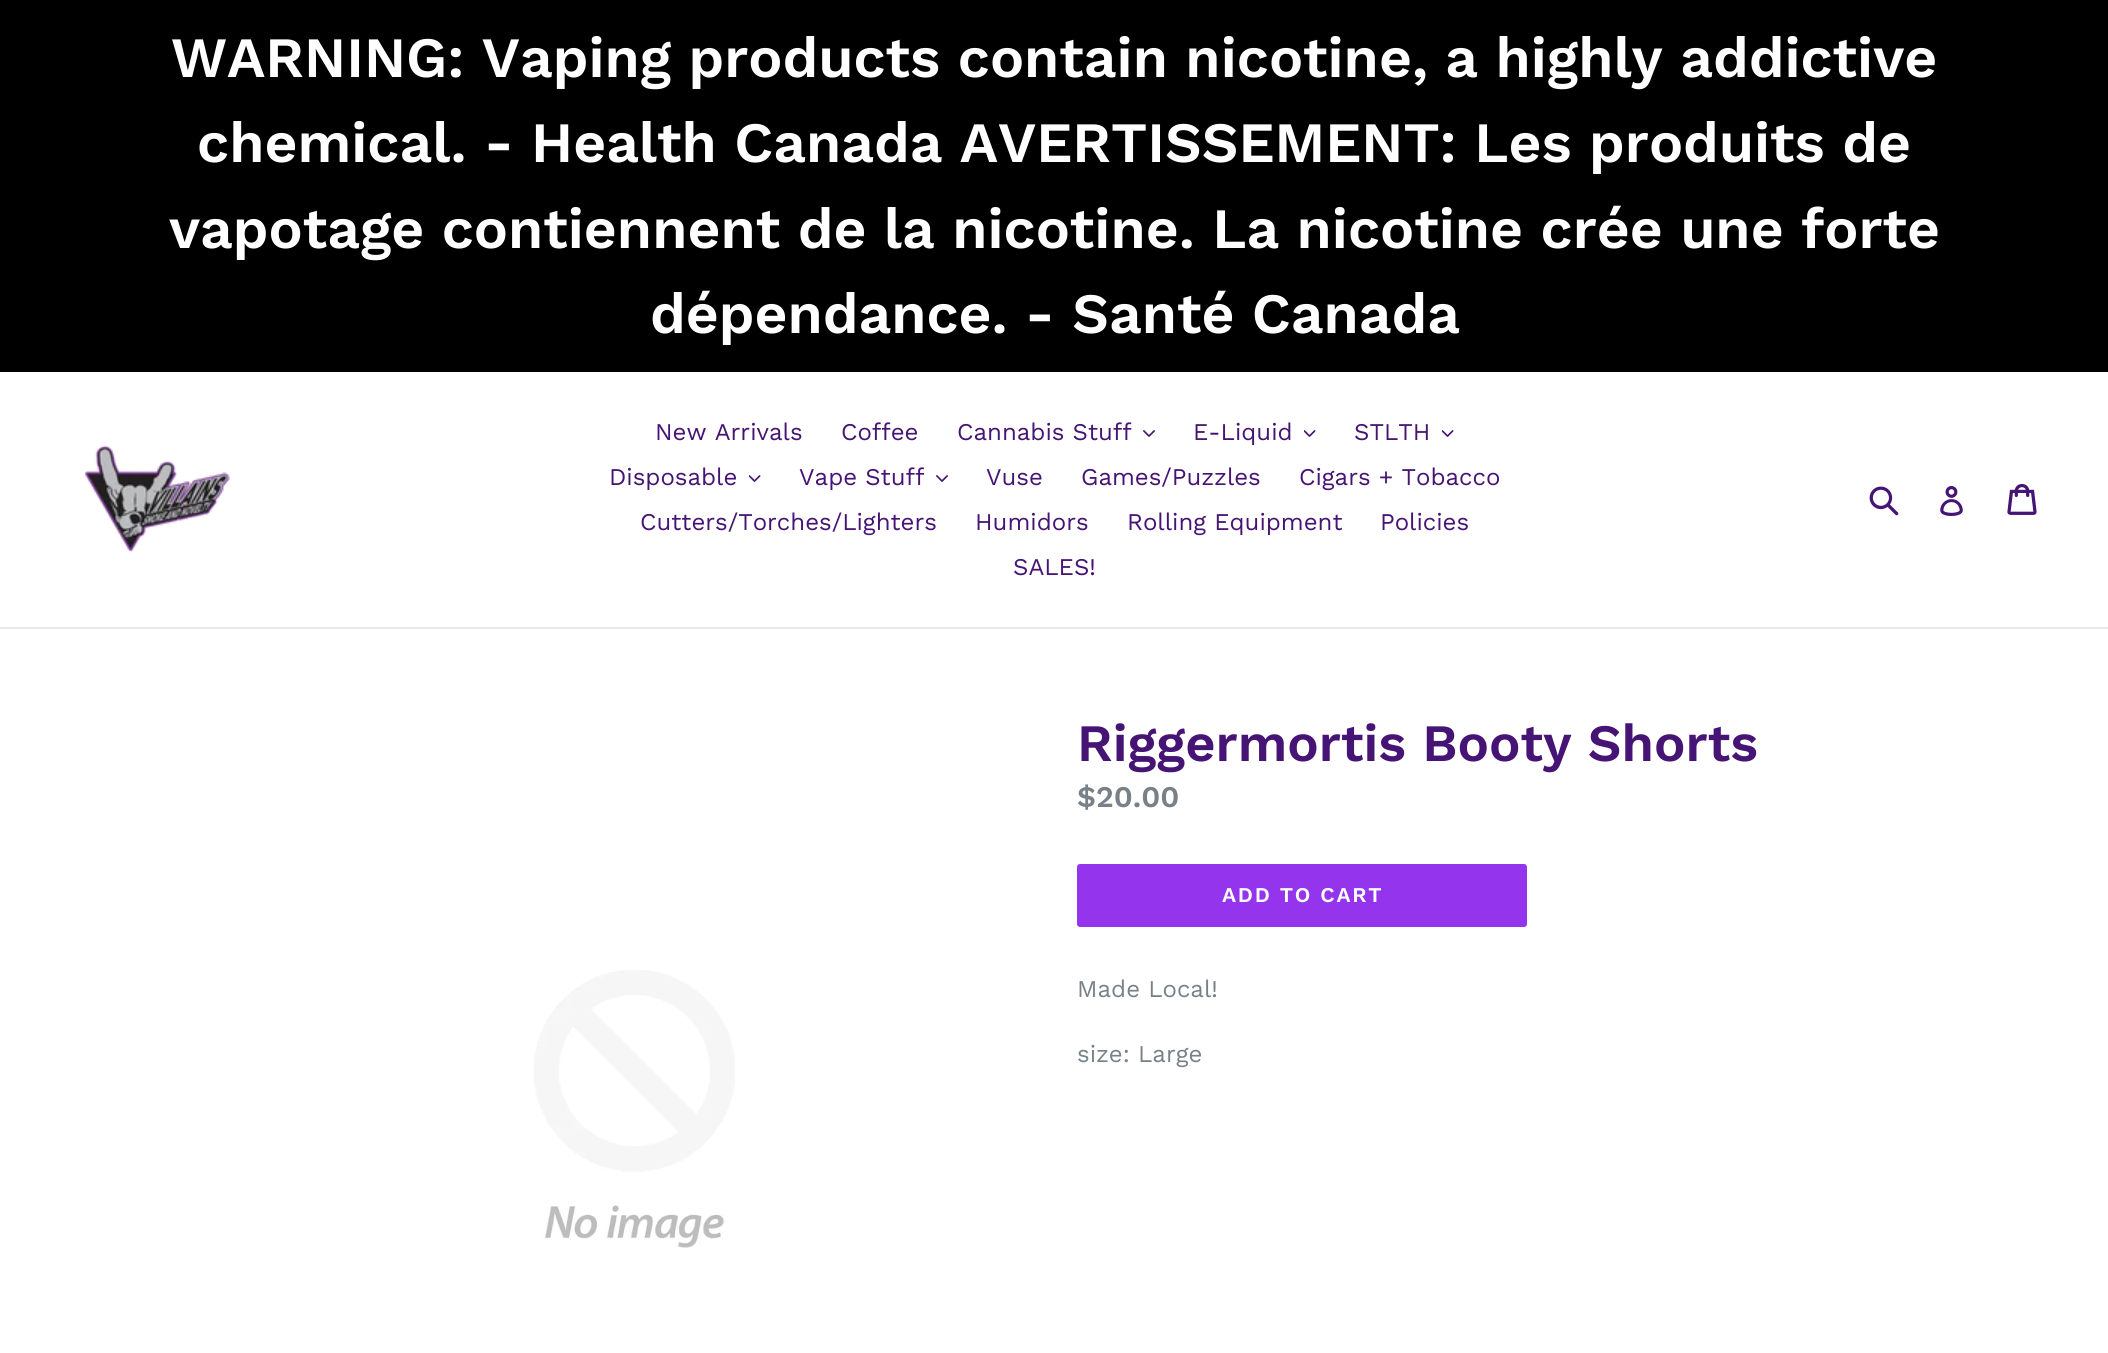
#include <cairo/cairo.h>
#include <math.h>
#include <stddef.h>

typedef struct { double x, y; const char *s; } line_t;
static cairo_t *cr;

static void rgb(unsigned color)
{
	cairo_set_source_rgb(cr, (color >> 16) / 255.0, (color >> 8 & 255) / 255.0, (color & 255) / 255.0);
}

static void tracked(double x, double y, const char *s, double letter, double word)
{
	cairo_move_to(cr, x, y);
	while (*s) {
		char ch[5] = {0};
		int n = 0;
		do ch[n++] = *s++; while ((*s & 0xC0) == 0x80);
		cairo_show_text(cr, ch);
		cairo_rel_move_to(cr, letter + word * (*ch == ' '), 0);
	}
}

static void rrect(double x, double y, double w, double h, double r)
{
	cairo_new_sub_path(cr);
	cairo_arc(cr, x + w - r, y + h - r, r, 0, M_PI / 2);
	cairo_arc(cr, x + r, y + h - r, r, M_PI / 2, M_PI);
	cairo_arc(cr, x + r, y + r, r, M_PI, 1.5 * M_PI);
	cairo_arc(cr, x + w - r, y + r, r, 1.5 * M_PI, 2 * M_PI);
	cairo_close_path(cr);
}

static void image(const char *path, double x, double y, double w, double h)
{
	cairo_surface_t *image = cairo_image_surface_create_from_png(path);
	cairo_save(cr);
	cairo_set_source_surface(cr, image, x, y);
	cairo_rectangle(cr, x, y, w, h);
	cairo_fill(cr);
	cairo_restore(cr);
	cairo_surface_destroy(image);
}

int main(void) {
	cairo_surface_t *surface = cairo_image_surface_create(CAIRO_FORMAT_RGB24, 2108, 1353);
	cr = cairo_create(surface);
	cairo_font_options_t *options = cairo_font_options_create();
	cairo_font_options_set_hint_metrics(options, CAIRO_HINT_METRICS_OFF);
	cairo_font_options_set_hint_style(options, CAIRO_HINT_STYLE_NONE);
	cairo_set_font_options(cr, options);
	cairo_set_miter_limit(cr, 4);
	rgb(0xffffff);
	cairo_paint(cr);
	rgb(0x000000);
	cairo_rectangle(cr, 0, 0, 2108, 372);
	cairo_fill(cr);
	rgb(0xe8e9eb);
	cairo_rectangle(cr, 0, 627, 2108, 2);
	cairo_fill(cr);
	image("img/1.png", 84, 445, 146, 108);
	image("img/2.png", 1143, 430, 12, 7);
	image("img/3.png", 1304, 430, 12, 7);
	image("img/3.png", 1442, 430, 12, 7);
	image("img/3.png", 749, 475, 12, 7);
	image("img/2.png", 936, 475, 12, 7);
	image("img/4.png", 1869, 486, 30, 30);
	image("img/5.png", 1940, 486, 23, 30);
	image("img/6.png", 2007, 483, 30, 32);
	rgb(0x9434ec);
	rrect(1077, 864, 450, 63, 3);
	cairo_fill(cr);
	image("img/7.png", 534, 970, 201, 278);
	cairo_select_font_face(cr, "Work Sans SemiBold", CAIRO_FONT_SLANT_NORMAL, CAIRO_FONT_WEIGHT_NORMAL);
	cairo_set_font_size(cr, 57);
	rgb(0xffffff);
	{
		static const line_t items[] = {
			{171, 77, "WARNING: Vaping products contain nicotine, a highly addictive"},
			{197, 162, "chemical. - Health Canada AVERTISSEMENT: Les produits de"},
			{169, 248, "vapotage contiennent de la nicotine. La nicotine crée une forte"},
			{650, 333, "dépendance. - Santé Canada"},
		};
		for (size_t i = 0; i < sizeof items / sizeof *items; i++) {
			cairo_move_to(cr, items[i].x, items[i].y);
			cairo_show_text(cr, items[i].s);
		}
	}
	cairo_select_font_face(cr, "Work Sans", CAIRO_FONT_SLANT_NORMAL, CAIRO_FONT_WEIGHT_NORMAL);
	cairo_set_font_size(cr, 24);
	rgb(0x461474);
	{
		static const line_t items[] = {
			{655, 440, "New Arrivals"},
			{841, 440, "Coffee"},
			{957, 440, "Cannabis Stuff"},
			{1193, 440, "E-Liquid"},
			{1354, 440, "STLTH"},
			{609, 485, "Disposable"},
			{799, 485, "Vape Stuff"},
			{986, 485, "Vuse"},
			{1081, 485, "Games/Puzzles"},
			{1299, 485, "Cigars + Tobacco"},
			{640, 530, "Cutters/Torches/Lighters"},
			{975, 530, "Humidors"},
			{1127, 530, "Rolling Equipment"},
			{1380, 530, "Policies"},
			{1013, 575, "SALES!"},
		};
		for (size_t i = 0; i < sizeof items / sizeof *items; i++) {
			cairo_move_to(cr, items[i].x, items[i].y);
			cairo_show_text(cr, items[i].s);
		}
	}
	cairo_select_font_face(cr, "Work Sans SemiBold", CAIRO_FONT_SLANT_NORMAL, CAIRO_FONT_WEIGHT_NORMAL);
	cairo_set_font_size(cr, 52.5);
	cairo_move_to(cr, 1077, 761);
	cairo_show_text(cr, "Riggermortis Booty Shorts");
	cairo_set_font_size(cr, 30);
	rgb(0x788188);
	cairo_move_to(cr, 1077, 807);
	cairo_show_text(cr, "$20.00");
	cairo_set_font_size(cr, 21);
	rgb(0xffffff);
	tracked(1222, 902, "ADD TO CART", 1.75, 0);
	cairo_select_font_face(cr, "Work Sans", CAIRO_FONT_SLANT_NORMAL, CAIRO_FONT_WEIGHT_NORMAL);
	cairo_set_font_size(cr, 24);
	rgb(0x788188);
	cairo_move_to(cr, 1077, 997);
	cairo_show_text(cr, "Made Local!");
	cairo_move_to(cr, 1077, 1062);
	cairo_show_text(cr, "size: Large");
	cairo_surface_write_to_png(surface, "page.png");
	cairo_font_options_destroy(options);
	cairo_destroy(cr);
	cairo_surface_destroy(surface);
	return 0;
}
